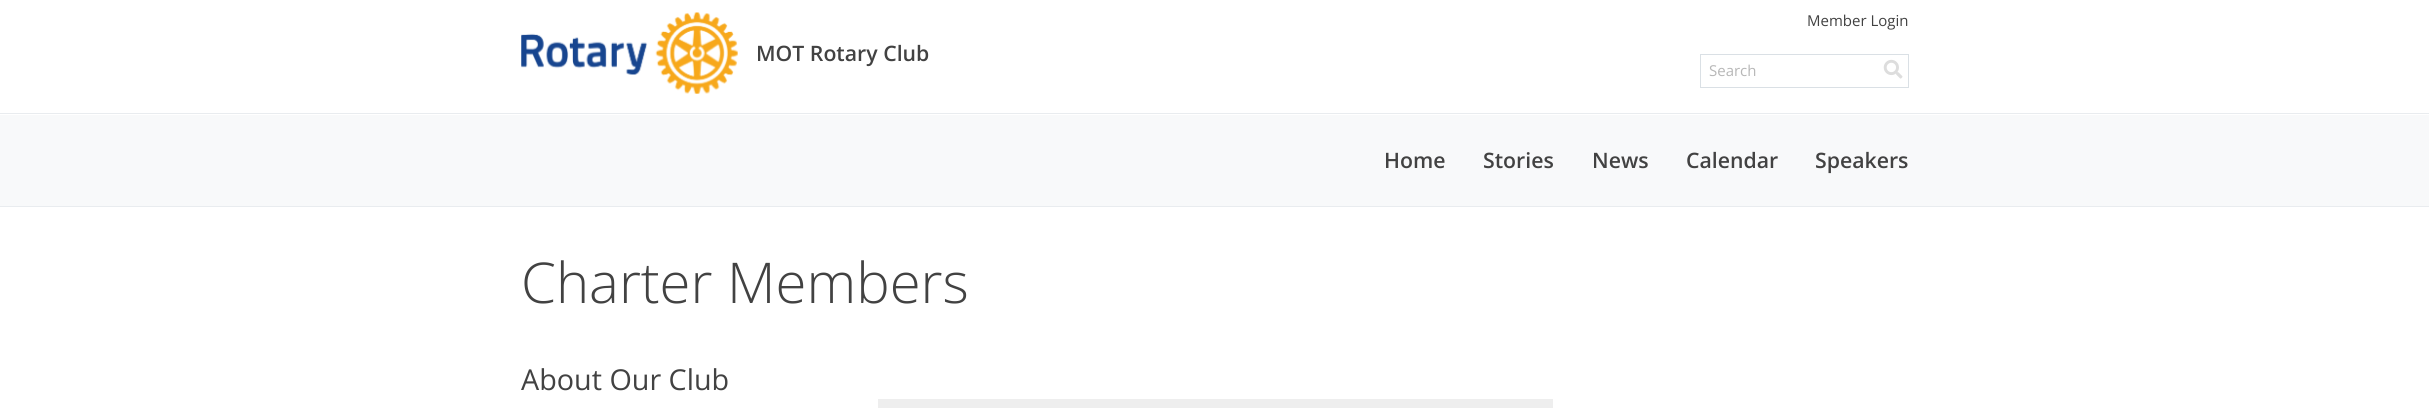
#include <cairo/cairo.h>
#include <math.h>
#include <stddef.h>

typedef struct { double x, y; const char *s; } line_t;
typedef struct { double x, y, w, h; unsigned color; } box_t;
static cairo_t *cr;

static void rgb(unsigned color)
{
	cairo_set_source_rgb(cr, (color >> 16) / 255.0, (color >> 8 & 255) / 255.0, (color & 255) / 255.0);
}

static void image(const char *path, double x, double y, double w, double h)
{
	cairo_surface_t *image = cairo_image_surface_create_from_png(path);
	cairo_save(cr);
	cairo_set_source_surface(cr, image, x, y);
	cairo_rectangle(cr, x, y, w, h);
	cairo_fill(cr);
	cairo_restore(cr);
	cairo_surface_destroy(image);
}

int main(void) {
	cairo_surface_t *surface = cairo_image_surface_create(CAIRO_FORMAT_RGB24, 2429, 408);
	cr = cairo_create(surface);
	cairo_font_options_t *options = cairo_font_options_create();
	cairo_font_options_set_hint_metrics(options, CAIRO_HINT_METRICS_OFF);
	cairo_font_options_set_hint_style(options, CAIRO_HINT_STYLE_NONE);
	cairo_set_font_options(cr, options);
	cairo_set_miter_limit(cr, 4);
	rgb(0xffffff);
	cairo_paint(cr);
	image("img/1.png", 521, 12, 217, 82);
	cairo_rectangle(cr, 1700.5, 54.5, 208, 33);
	rgb(0xdae0e5);
	cairo_set_line_width(cr, 1);
	cairo_stroke(cr);
	image("img/2.png", 1883, 59, 20, 20);
	{
		static const box_t items[] = {
			{0, 113, 2429, 1, 0xe9ecef},
			{0, 115, 2429, 91, 0xf8f9fa},
			{0, 206, 2429, 1, 0xe9ecef},
			{878, 399, 675, 9, 0xeeeeee},
		};
		for (size_t i = 0; i < sizeof items / sizeof *items; i++) {
			rgb(items[i].color);
			cairo_rectangle(cr, items[i].x, items[i].y, items[i].w, items[i].h);
			cairo_fill(cr);
		}
	}
	cairo_select_font_face(cr, "Open Sans SemiBold", CAIRO_FONT_SLANT_NORMAL, CAIRO_FONT_WEIGHT_NORMAL);
	cairo_set_font_size(cr, 21.25);
	rgb(0x424242);
	cairo_move_to(cr, 756, 61);
	cairo_show_text(cr, "MOT Rotary Club");
	cairo_select_font_face(cr, "Open Sans", CAIRO_FONT_SLANT_NORMAL, CAIRO_FONT_WEIGHT_NORMAL);
	cairo_set_font_size(cr, 15);
	cairo_move_to(cr, 1807, 26);
	cairo_show_text(cr, "Member Login");
	rgb(0xb7b7b7);
	cairo_move_to(cr, 1709, 76);
	cairo_show_text(cr, "Search");
	cairo_select_font_face(cr, "Open Sans SemiBold", CAIRO_FONT_SLANT_NORMAL, CAIRO_FONT_WEIGHT_NORMAL);
	cairo_set_font_size(cr, 21.25);
	rgb(0x424242);
	{
		static const line_t items[] = {
			{1384, 168, "Home"},
			{1483, 168, "Stories"},
			{1592, 168, "News"},
			{1686, 168, "Calendar"},
			{1815, 168, "Speakers"},
		};
		for (size_t i = 0; i < sizeof items / sizeof *items; i++) {
			cairo_move_to(cr, items[i].x, items[i].y);
			cairo_show_text(cr, items[i].s);
		}
	}
	cairo_select_font_face(cr, "Open Sans Light", CAIRO_FONT_SLANT_NORMAL, CAIRO_FONT_WEIGHT_NORMAL);
	cairo_set_font_size(cr, 56.25);
	cairo_move_to(cr, 521, 303);
	cairo_show_text(cr, "Charter Members");
	cairo_select_font_face(cr, "Open Sans", CAIRO_FONT_SLANT_NORMAL, CAIRO_FONT_WEIGHT_NORMAL);
	cairo_set_font_size(cr, 28.75);
	cairo_move_to(cr, 521, 390);
	cairo_show_text(cr, "About Our Club");
	cairo_surface_write_to_png(surface, "page.png");
	cairo_font_options_destroy(options);
	cairo_destroy(cr);
	cairo_surface_destroy(surface);
	return 0;
}
